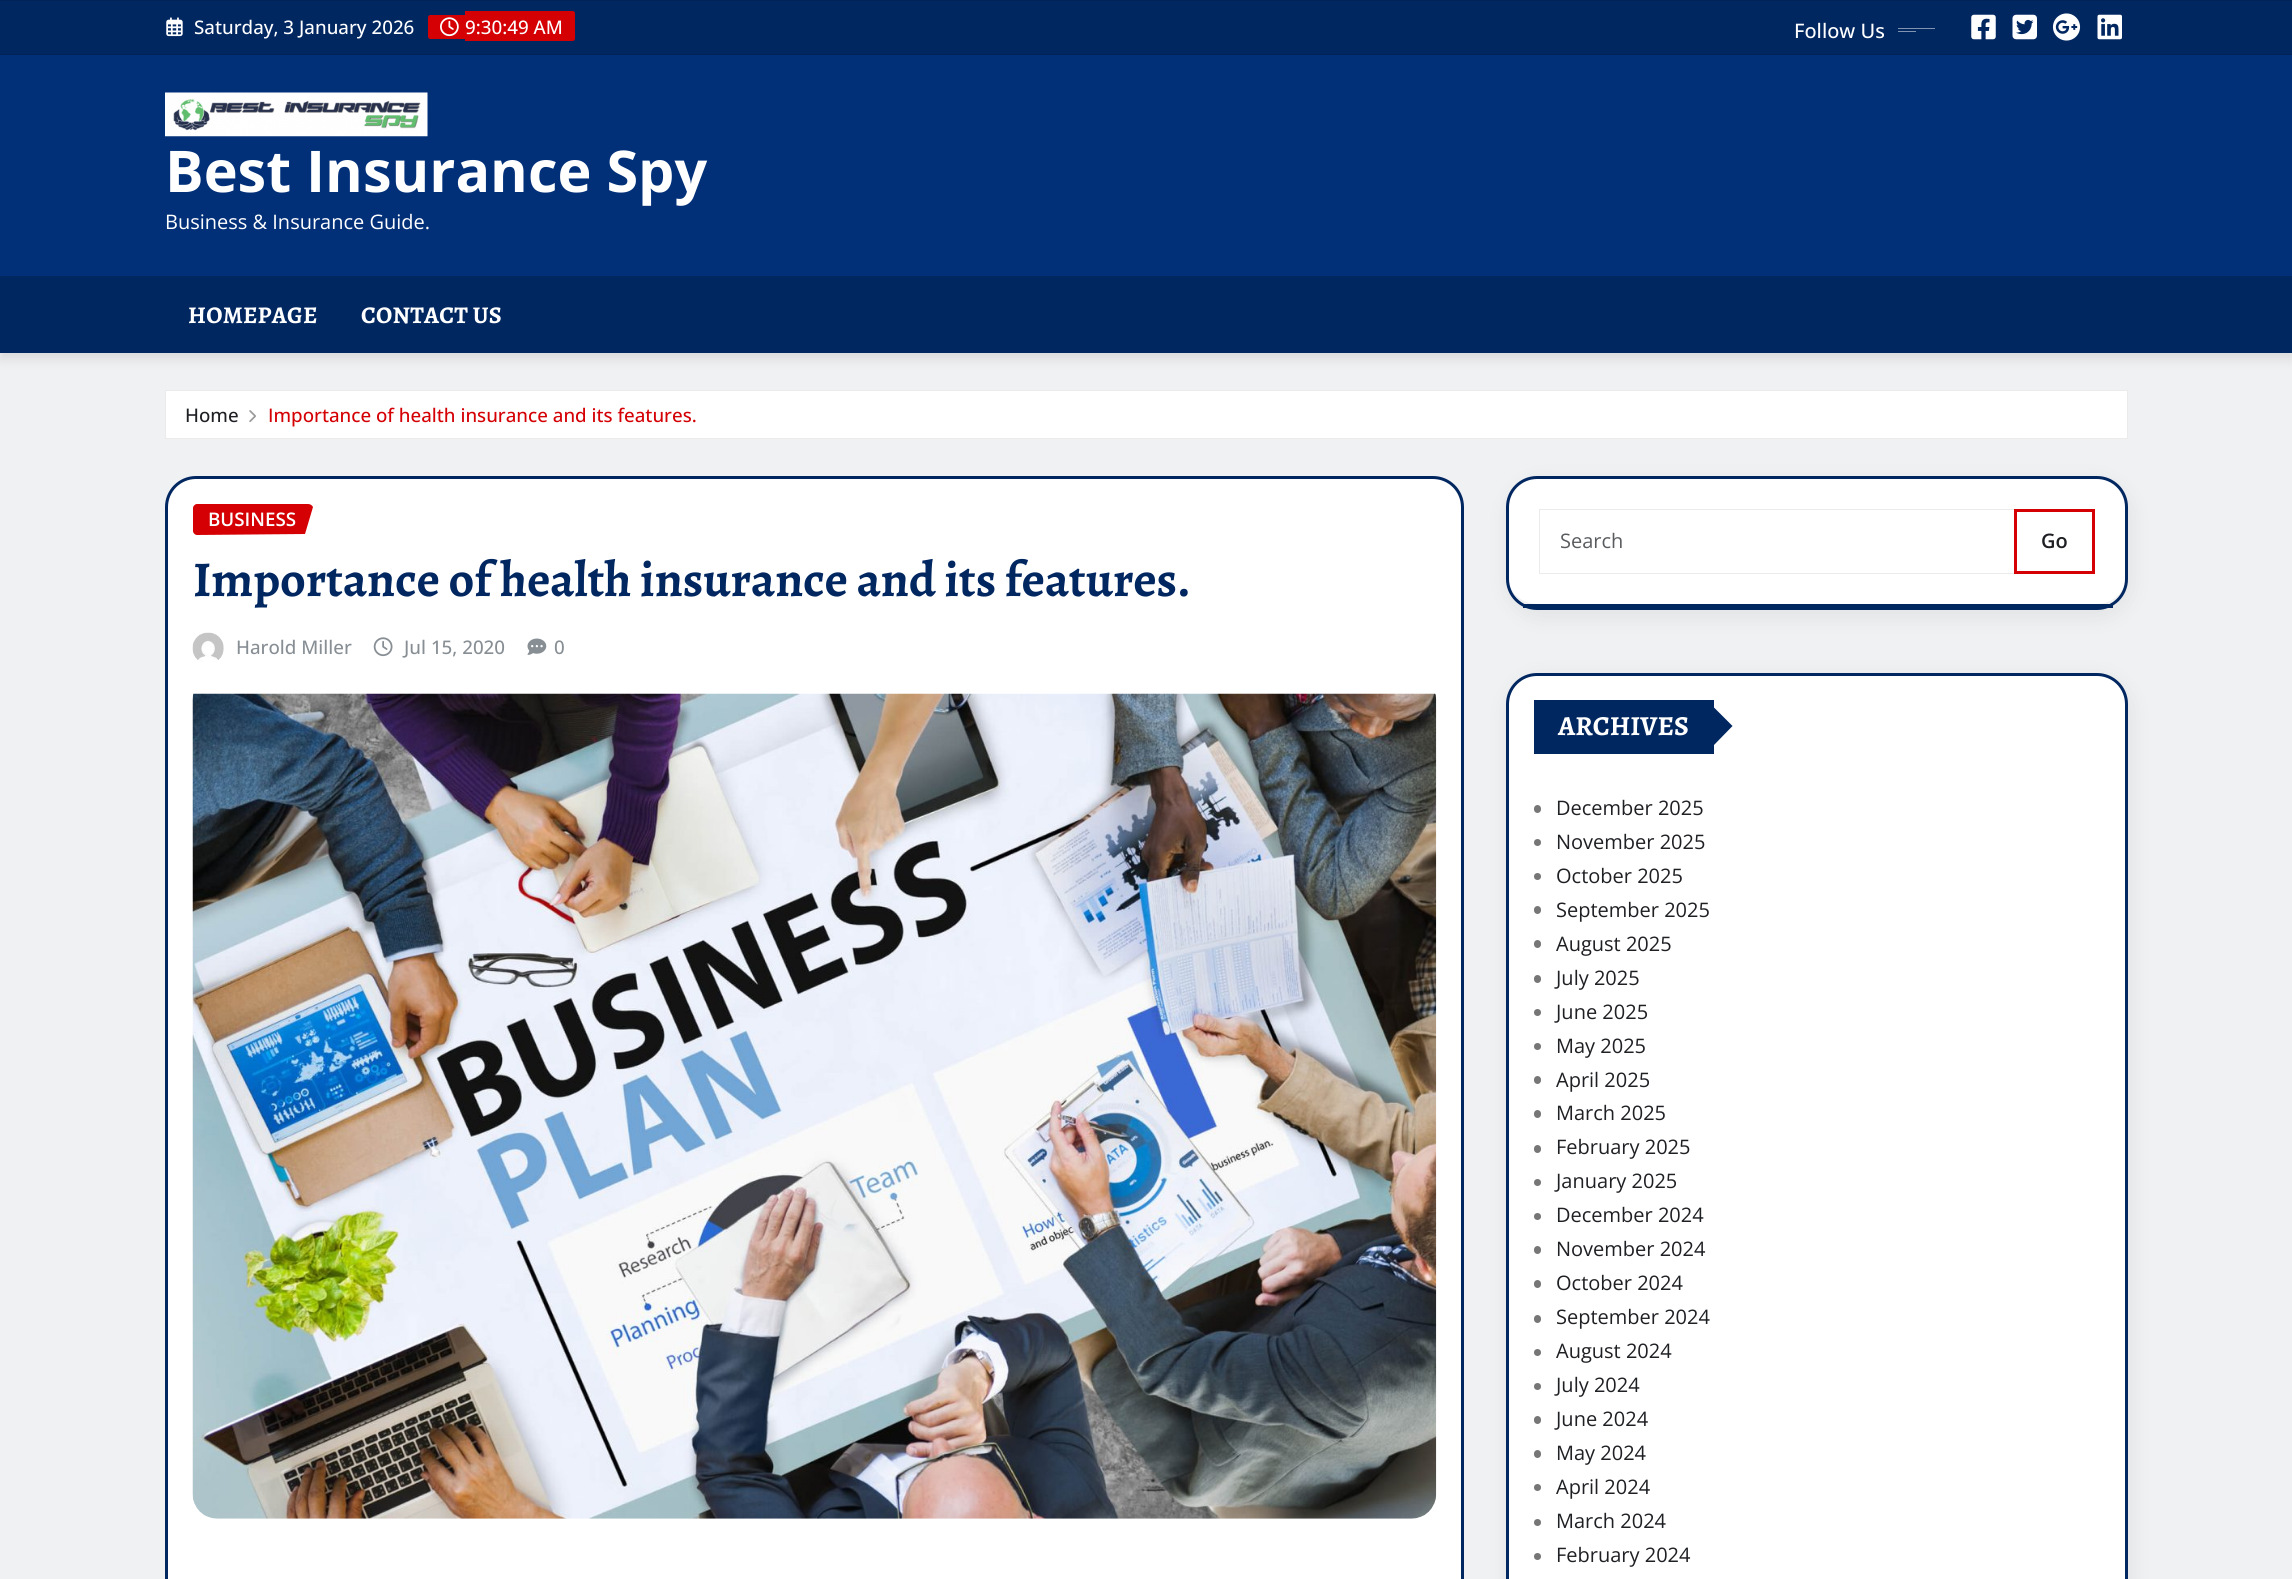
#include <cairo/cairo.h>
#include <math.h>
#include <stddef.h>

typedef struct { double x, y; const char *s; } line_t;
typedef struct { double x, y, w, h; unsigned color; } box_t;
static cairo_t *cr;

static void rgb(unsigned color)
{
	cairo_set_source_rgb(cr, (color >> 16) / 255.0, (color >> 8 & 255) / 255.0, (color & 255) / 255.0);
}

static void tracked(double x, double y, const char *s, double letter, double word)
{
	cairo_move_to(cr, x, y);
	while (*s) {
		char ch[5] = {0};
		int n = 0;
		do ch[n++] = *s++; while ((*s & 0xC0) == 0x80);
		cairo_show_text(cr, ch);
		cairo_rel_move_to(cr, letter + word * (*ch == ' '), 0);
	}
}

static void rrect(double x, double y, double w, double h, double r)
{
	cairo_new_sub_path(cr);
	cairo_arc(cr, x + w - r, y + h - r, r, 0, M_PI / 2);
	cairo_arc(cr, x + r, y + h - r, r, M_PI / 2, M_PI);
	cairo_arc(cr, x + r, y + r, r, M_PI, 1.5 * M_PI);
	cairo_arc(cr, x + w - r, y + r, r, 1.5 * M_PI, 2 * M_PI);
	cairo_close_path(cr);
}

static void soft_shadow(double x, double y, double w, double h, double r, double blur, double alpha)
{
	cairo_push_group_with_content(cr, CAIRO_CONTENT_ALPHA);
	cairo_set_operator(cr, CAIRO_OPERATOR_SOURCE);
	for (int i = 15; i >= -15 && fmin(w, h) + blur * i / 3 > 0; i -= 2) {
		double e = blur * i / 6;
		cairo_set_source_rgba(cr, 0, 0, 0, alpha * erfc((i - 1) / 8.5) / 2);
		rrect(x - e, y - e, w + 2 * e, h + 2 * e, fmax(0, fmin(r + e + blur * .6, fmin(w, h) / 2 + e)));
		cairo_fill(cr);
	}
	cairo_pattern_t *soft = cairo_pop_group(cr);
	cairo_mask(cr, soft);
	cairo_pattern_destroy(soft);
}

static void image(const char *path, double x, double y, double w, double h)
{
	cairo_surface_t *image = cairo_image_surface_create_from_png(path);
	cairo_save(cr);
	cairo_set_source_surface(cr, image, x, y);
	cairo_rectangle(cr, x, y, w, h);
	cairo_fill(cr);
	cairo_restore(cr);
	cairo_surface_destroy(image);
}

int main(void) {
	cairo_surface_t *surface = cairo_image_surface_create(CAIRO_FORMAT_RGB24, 2292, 1579);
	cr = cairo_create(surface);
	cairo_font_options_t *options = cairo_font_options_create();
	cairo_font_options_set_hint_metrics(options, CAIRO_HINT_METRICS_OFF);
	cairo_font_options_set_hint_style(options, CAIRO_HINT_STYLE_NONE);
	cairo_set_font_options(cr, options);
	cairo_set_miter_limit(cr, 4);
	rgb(0xf0f1f3);
	cairo_paint(cr);
	{
		static const box_t items[] = {
			{0, 1, 2292, 53, 0x012761},
			{0, 0, 2292, 1, 0x012357},
			{0, 54, 2292, 1, 0x012357},
		};
		for (size_t i = 0; i < sizeof items / sizeof *items; i++) {
			rgb(items[i].color);
			cairo_rectangle(cr, items[i].x, items[i].y, items[i].w, items[i].h);
			cairo_fill(cr);
		}
	}
	image("img/1.png", 166, 17, 17, 20);
	rgb(0xd40004);
	cairo_new_path(cr);
	cairo_move_to(cr, 430.5, 15);
	cairo_line_to(cr, 465, 15);
	cairo_line_to(cr, 465, 39);
	cairo_line_to(cr, 430.5, 39);
	cairo_curve_to(cr, 429, 39, 428, 38, 428, 36.5);
	cairo_line_to(cr, 428, 17.5);
	cairo_curve_to(cr, 428, 16, 429, 15, 430.5, 15);
	cairo_close_path(cr);
	cairo_fill(cr);
	image("img/2.png", 440, 17, 19, 20);
	cairo_new_path(cr);
	cairo_move_to(cr, 465, 11);
	cairo_line_to(cr, 572.5, 11);
	cairo_curve_to(cr, 574, 11, 575, 12, 575, 13.5);
	cairo_line_to(cr, 575, 38.5);
	cairo_curve_to(cr, 575, 40, 574, 41, 572.5, 41);
	cairo_line_to(cr, 465, 41);
	cairo_close_path(cr);
	cairo_fill(cr);
	rgb(0x8093b0);
	cairo_rectangle(cr, 1898, 28, 37, 1);
	cairo_fill(cr);
	cairo_rectangle(cr, 1898, 31, 18, 1);
	cairo_fill(cr);
	image("img/3.png", 1971, 14, 25, 26);
	image("img/4.png", 2012, 14, 25, 26);
	image("img/5.png", 2052, 13, 29, 28);
	image("img/6.png", 2097, 14, 25, 26);
	rgb(0x013079);
	cairo_rectangle(cr, 0, 55, 2292, 221);
	cairo_fill(cr);
	image("img/7.png", 165, 92, 263, 45);
	rgb(0x000000);
	soft_shadow(0, 283, 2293, 76, 0, 6, 0.1);
	rgb(0x012761);
	cairo_rectangle(cr, 0, 276, 2292, 77);
	cairo_fill(cr);
	rgb(0xffffff);
	cairo_rectangle(cr, 165.5, 390.5, 1962, 48);
	cairo_fill_preserve(cr);
	rgb(0xebebeb);
	cairo_set_line_width(cr, 1);
	cairo_stroke(cr);
	image("img/8.png", 249, 410, 7, 12);
	rgb(0xffffff);
	cairo_new_path(cr);
	cairo_move_to(cr, 196, 479);
	cairo_line_to(cr, 1432, 479);
	cairo_curve_to(cr, 1448, 479, 1461, 492, 1461, 508);
	cairo_line_to(cr, 1461, 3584);
	cairo_curve_to(cr, 1461, 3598, 1448, 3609, 1432, 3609);
	cairo_line_to(cr, 196, 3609);
	cairo_curve_to(cr, 180, 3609, 168, 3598, 168, 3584);
	cairo_line_to(cr, 168, 508);
	cairo_curve_to(cr, 168, 492, 180, 479, 196, 479);
	cairo_close_path(cr);
	cairo_fill(cr);
	rrect(166.5, 477.5, 1296, 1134, 29.5);
	rgb(0x012761);
	cairo_set_line_width(cr, 3);
	cairo_stroke(cr);
	rgb(0xd40004);
	cairo_new_path(cr);
	cairo_move_to(cr, 197, 504);
	cairo_line_to(cr, 308, 504);
	cairo_curve_to(cr, 310, 504, 312, 505, 313, 507);
	cairo_line_to(cr, 305, 534);
	cairo_line_to(cr, 197, 535);
	cairo_curve_to(cr, 195, 535, 193, 533, 193, 531);
	cairo_line_to(cr, 193, 508);
	cairo_curve_to(cr, 193, 506, 195, 504, 197, 504);
	cairo_close_path(cr);
	cairo_fill(cr);
	image("img/9.png", 192, 632, 32, 30);
	image("img/10.png", 373, 637, 20, 20);
	image("img/11.png", 527, 638, 20, 17);
	image("img/12.png", 192, 693, 1245, 826);
	cairo_save(cr);
	cairo_set_fill_rule(cr, CAIRO_FILL_RULE_EVEN_ODD);
	cairo_new_path(cr);
	cairo_move_to(cr, 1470, 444);
	cairo_line_to(cr, 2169, 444);
	cairo_line_to(cr, 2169, 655);
	cairo_line_to(cr, 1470, 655);
	cairo_close_path(cr);
	cairo_move_to(cr, 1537, 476);
	cairo_line_to(cr, 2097, 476);
	cairo_curve_to(cr, 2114, 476, 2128, 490, 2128, 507);
	cairo_line_to(cr, 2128, 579);
	cairo_curve_to(cr, 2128, 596, 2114, 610, 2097, 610);
	cairo_line_to(cr, 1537, 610);
	cairo_curve_to(cr, 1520, 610, 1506, 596, 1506, 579);
	cairo_line_to(cr, 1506, 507);
	cairo_curve_to(cr, 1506, 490, 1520, 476, 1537, 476);
	cairo_close_path(cr);
	cairo_clip(cr);
	rgb(0x000000);
	soft_shadow(1509, 483, 621, 133, 31, 12.5, 0.07);
	cairo_restore(cr);
	rgb(0xffffff);
	cairo_new_path(cr);
	cairo_move_to(cr, 1538, 479);
	cairo_line_to(cr, 2096, 479);
	cairo_curve_to(cr, 2112, 479, 2125, 492, 2125, 508);
	cairo_line_to(cr, 2125, 579);
	cairo_curve_to(cr, 2125, 593, 2112, 604, 2096, 604);
	cairo_line_to(cr, 1538, 604);
	cairo_curve_to(cr, 1522, 604, 1509, 593, 1509, 579);
	cairo_line_to(cr, 1509, 508);
	cairo_curve_to(cr, 1509, 492, 1522, 479, 1538, 479);
	cairo_close_path(cr);
	cairo_fill(cr);
	rrect(1507.5, 477.5, 619, 131, 29.5);
	rgb(0x012761);
	cairo_stroke(cr);
	cairo_rectangle(cr, 1523, 604, 590, 4);
	cairo_fill(cr);
	cairo_rectangle(cr, 1539.5, 509.5, 475, 64);
	rgb(0xebebeb);
	cairo_set_line_width(cr, 1);
	cairo_stroke(cr);
	cairo_rectangle(cr, 2015.5, 510.5, 78, 62);
	rgb(0xd40004);
	cairo_set_line_width(cr, 3);
	cairo_stroke(cr);
	rgb(0x000000);
	soft_shadow(1509, 679, 621, 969, 31, 12.5, 0.07);
	rgb(0xffffff);
	cairo_new_path(cr);
	cairo_move_to(cr, 1538, 675);
	cairo_line_to(cr, 2096, 675);
	cairo_curve_to(cr, 2112, 675, 2125, 688, 2125, 704);
	cairo_line_to(cr, 2125, 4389);
	cairo_curve_to(cr, 2125, 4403, 2112, 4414, 2096, 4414);
	cairo_line_to(cr, 1538, 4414);
	cairo_curve_to(cr, 1522, 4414, 1509, 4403, 1509, 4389);
	cairo_line_to(cr, 1509, 704);
	cairo_curve_to(cr, 1509, 688, 1522, 675, 1538, 675);
	cairo_close_path(cr);
	cairo_fill(cr);
	rrect(1507.5, 674.5, 619, 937, 29.5);
	rgb(0x012761);
	cairo_stroke(cr);
	cairo_rectangle(cr, 1534, 700, 180, 54);
	cairo_fill(cr);
	cairo_new_path(cr);
	cairo_move_to(cr, 1714, 745);
	cairo_line_to(cr, 1714, 707.5);
	cairo_line_to(cr, 1732.5, 726);
	cairo_close_path(cr);
	cairo_fill(cr);
	rgb(0x767676);
	rrect(1534, 805, 7, 8, 3.5);
	cairo_fill(cr);
	cairo_arc(cr, 1537.5, 842.5, 3.5, 0, 2 * M_PI);
	cairo_fill(cr);
	cairo_arc(cr, 1537.5, 876.5, 3.5, 0, 2 * M_PI);
	cairo_fill(cr);
	rrect(1534, 906, 7, 8, 3.5);
	cairo_fill(cr);
	rrect(1534, 940, 7, 8, 3.5);
	cairo_fill(cr);
	rrect(1534, 975, 7, 8, 3.5);
	cairo_fill(cr);
	cairo_arc(cr, 1537.5, 1012.5, 3.5, 0, 2 * M_PI);
	cairo_fill(cr);
	cairo_arc(cr, 1537.5, 1046.5, 3.5, 0, 2 * M_PI);
	cairo_fill(cr);
	rrect(1534, 1076, 7, 8, 3.5);
	cairo_fill(cr);
	rrect(1534, 1110, 7, 8, 3.5);
	cairo_fill(cr);
	rrect(1534, 1145, 7, 8, 3.5);
	cairo_fill(cr);
	cairo_arc(cr, 1537.5, 1182.5, 3.5, 0, 2 * M_PI);
	cairo_fill(cr);
	cairo_arc(cr, 1537.5, 1216.5, 3.5, 0, 2 * M_PI);
	cairo_fill(cr);
	rrect(1534, 1246, 7, 8, 3.5);
	cairo_fill(cr);
	rrect(1534, 1280, 7, 8, 3.5);
	cairo_fill(cr);
	rrect(1534, 1315, 7, 8, 3.5);
	cairo_fill(cr);
	cairo_arc(cr, 1537.5, 1352.5, 3.5, 0, 2 * M_PI);
	cairo_fill(cr);
	cairo_arc(cr, 1537.5, 1386.5, 3.5, 0, 2 * M_PI);
	cairo_fill(cr);
	rrect(1534, 1416, 7, 8, 3.5);
	cairo_fill(cr);
	rrect(1534, 1450, 7, 8, 3.5);
	cairo_fill(cr);
	cairo_arc(cr, 1537.5, 1487.5, 3.5, 0, 2 * M_PI);
	cairo_fill(cr);
	cairo_arc(cr, 1537.5, 1522.5, 3.5, 0, 2 * M_PI);
	cairo_fill(cr);
	cairo_arc(cr, 1537.5, 1556.5, 3.5, 0, 2 * M_PI);
	cairo_fill(cr);
	cairo_select_font_face(cr, "Open Sans Medium", CAIRO_FONT_SLANT_NORMAL, CAIRO_FONT_WEIGHT_NORMAL);
	cairo_set_font_size(cr, 18.75);
	rgb(0xffffff);
	cairo_move_to(cr, 194, 34);
	cairo_show_text(cr, "Saturday, 3 January 2026");
	cairo_move_to(cr, 465, 34);
	cairo_show_text(cr, "9:30:49 AM");
	cairo_set_font_size(cr, 20);
	cairo_move_to(cr, 1794, 38);
	cairo_show_text(cr, "Follow Us");
	cairo_select_font_face(cr, "Open Sans", CAIRO_FONT_SLANT_NORMAL, CAIRO_FONT_WEIGHT_BOLD);
	cairo_set_font_size(cr, 57.5);
	cairo_move_to(cr, 165, 192);
	cairo_show_text(cr, "Best Insurance Spy");
	cairo_select_font_face(cr, "Open Sans", CAIRO_FONT_SLANT_NORMAL, CAIRO_FONT_WEIGHT_NORMAL);
	cairo_set_font_size(cr, 20);
	cairo_move_to(cr, 165, 229);
	cairo_show_text(cr, "Business & Insurance Guide.");
	cairo_select_font_face(cr, "Alegreya", CAIRO_FONT_SLANT_NORMAL, CAIRO_FONT_WEIGHT_BOLD);
	cairo_set_font_size(cr, 24);
	tracked(188, 323, "HOMEPAGE", 0.25, 0);
	tracked(361, 323, "CONTACT US", 0.25, 0);
	cairo_select_font_face(cr, "Open Sans Medium", CAIRO_FONT_SLANT_NORMAL, CAIRO_FONT_WEIGHT_NORMAL);
	cairo_set_font_size(cr, 18.75);
	rgb(0x1f2024);
	cairo_move_to(cr, 185, 422);
	cairo_show_text(cr, "Home");
	rgb(0xd40004);
	cairo_move_to(cr, 268, 422);
	cairo_show_text(cr, "Importance of health insurance and its features.");
	cairo_select_font_face(cr, "Open Sans SemiBold", CAIRO_FONT_SLANT_NORMAL, CAIRO_FONT_WEIGHT_NORMAL);
	rgb(0xffffff);
	cairo_move_to(cr, 208, 526);
	cairo_show_text(cr, "BUSINESS");
	cairo_select_font_face(cr, "Alegreya", CAIRO_FONT_SLANT_NORMAL, CAIRO_FONT_WEIGHT_BOLD);
	cairo_set_font_size(cr, 50);
	rgb(0x012761);
	cairo_move_to(cr, 193, 596);
	cairo_show_text(cr, "Importance of health insurance and its features.");
	cairo_select_font_face(cr, "Open Sans Medium", CAIRO_FONT_SLANT_NORMAL, CAIRO_FONT_WEIGHT_NORMAL);
	cairo_set_font_size(cr, 18.75);
	rgb(0x878e94);
	{
		static const line_t items[] = {
			{236, 654, "Harold Miller"},
			{404, 654, "Jul 15, 2020"},
			{554, 654, "0"},
		};
		for (size_t i = 0; i < sizeof items / sizeof *items; i++) {
			cairo_move_to(cr, items[i].x, items[i].y);
			cairo_show_text(cr, items[i].s);
		}
	}
	cairo_select_font_face(cr, "Open Sans", CAIRO_FONT_SLANT_NORMAL, CAIRO_FONT_WEIGHT_NORMAL);
	cairo_set_font_size(cr, 20);
	rgb(0x595c5f);
	cairo_move_to(cr, 1560, 548);
	cairo_show_text(cr, "Search");
	cairo_select_font_face(cr, "Open Sans SemiBold", CAIRO_FONT_SLANT_NORMAL, CAIRO_FONT_WEIGHT_NORMAL);
	rgb(0x1f2024);
	cairo_move_to(cr, 2041, 548);
	cairo_show_text(cr, "Go");
	cairo_select_font_face(cr, "Alegreya", CAIRO_FONT_SLANT_NORMAL, CAIRO_FONT_WEIGHT_BOLD);
	cairo_set_font_size(cr, 27.5);
	rgb(0xffffff);
	cairo_move_to(cr, 1558, 735);
	cairo_show_text(cr, "ARCHIVES");
	cairo_select_font_face(cr, "Open Sans", CAIRO_FONT_SLANT_NORMAL, CAIRO_FONT_WEIGHT_NORMAL);
	cairo_set_font_size(cr, 20);
	rgb(0x1f2024);
	{
		static const line_t items[] = {
			{1556, 815, "December 2025"},
			{1556, 849, "November 2025"},
			{1556, 883, "October 2025"},
			{1556, 917, "September 2025"},
			{1556, 951, "August 2025"},
			{1556, 985, "July 2025"},
			{1556, 1019, "June 2025"},
			{1556, 1053, "May 2025"},
			{1556, 1087, "April 2025"},
			{1556, 1120, "March 2025"},
			{1556, 1154, "February 2025"},
			{1556, 1188, "January 2025"},
			{1556, 1222, "December 2024"},
			{1556, 1256, "November 2024"},
			{1556, 1290, "October 2024"},
			{1556, 1324, "September 2024"},
			{1556, 1358, "August 2024"},
			{1556, 1392, "July 2024"},
			{1556, 1426, "June 2024"},
			{1556, 1460, "May 2024"},
			{1556, 1494, "April 2024"},
			{1556, 1528, "March 2024"},
			{1556, 1562, "February 2024"},
		};
		for (size_t i = 0; i < sizeof items / sizeof *items; i++) {
			cairo_move_to(cr, items[i].x, items[i].y);
			cairo_show_text(cr, items[i].s);
		}
	}
	cairo_surface_write_to_png(surface, "page.png");
	cairo_font_options_destroy(options);
	cairo_destroy(cr);
	cairo_surface_destroy(surface);
	return 0;
}
